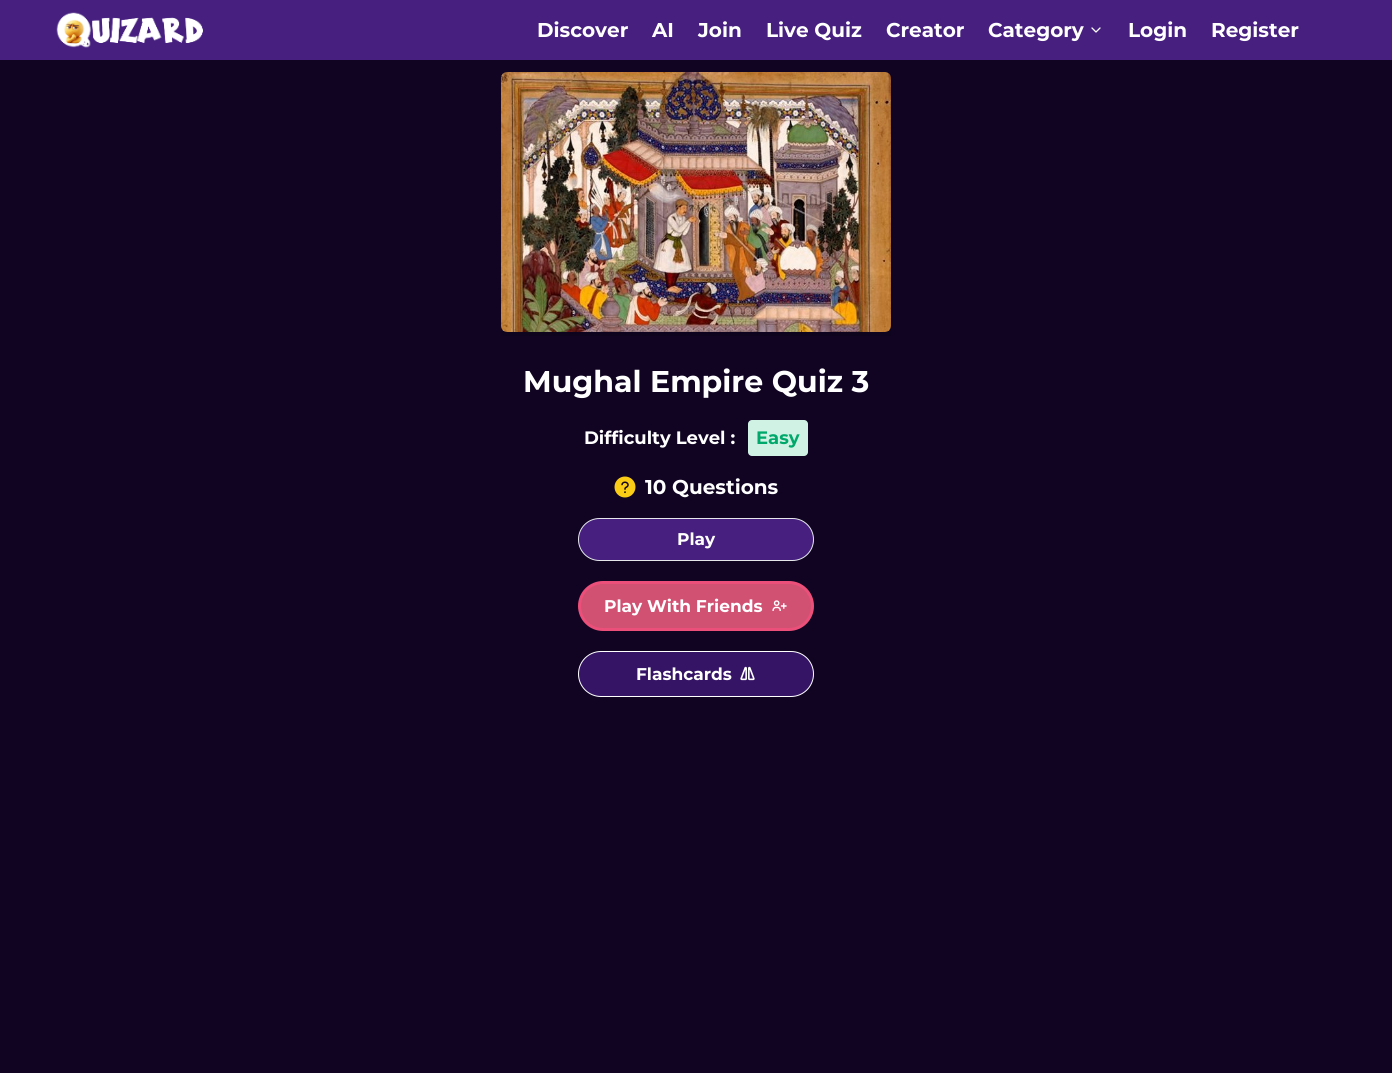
#include <cairo/cairo.h>
#include <math.h>
#include <stddef.h>

typedef struct { double x, y; const char *s; } line_t;
static cairo_t *cr;

static void rgb(unsigned color)
{
	cairo_set_source_rgb(cr, (color >> 16) / 255.0, (color >> 8 & 255) / 255.0, (color & 255) / 255.0);
}

static void rrect(double x, double y, double w, double h, double r)
{
	cairo_new_sub_path(cr);
	cairo_arc(cr, x + w - r, y + h - r, r, 0, M_PI / 2);
	cairo_arc(cr, x + r, y + h - r, r, M_PI / 2, M_PI);
	cairo_arc(cr, x + r, y + r, r, M_PI, 1.5 * M_PI);
	cairo_arc(cr, x + w - r, y + r, r, 1.5 * M_PI, 2 * M_PI);
	cairo_close_path(cr);
}

static void image(const char *path, double x, double y, double w, double h)
{
	cairo_surface_t *image = cairo_image_surface_create_from_png(path);
	cairo_save(cr);
	cairo_set_source_surface(cr, image, x, y);
	cairo_rectangle(cr, x, y, w, h);
	cairo_fill(cr);
	cairo_restore(cr);
	cairo_surface_destroy(image);
}

int main(void) {
	cairo_surface_t *surface = cairo_image_surface_create(CAIRO_FORMAT_RGB24, 1392, 1073);
	cr = cairo_create(surface);
	cairo_font_options_t *options = cairo_font_options_create();
	cairo_font_options_set_hint_metrics(options, CAIRO_HINT_METRICS_OFF);
	cairo_font_options_set_hint_style(options, CAIRO_HINT_STYLE_NONE);
	cairo_set_font_options(cr, options);
	cairo_set_miter_limit(cr, 4);
	rgb(0x100422);
	cairo_paint(cr);
	rgb(0x461f7f);
	cairo_rectangle(cr, 0, 0, 1392, 60);
	cairo_fill(cr);
	image("img/1.png", 56, 12, 147, 36);
	cairo_new_path(cr);
	cairo_move_to(cr, 1092, 28);
	cairo_line_to(cr, 1096, 32);
	cairo_line_to(cr, 1100, 28);
	rgb(0xffffff);
	cairo_set_line_width(cr, 1.3);
	cairo_set_line_cap(cr, CAIRO_LINE_CAP_ROUND);
	cairo_set_line_join(cr, CAIRO_LINE_JOIN_ROUND);
	cairo_stroke(cr);
	image("img/2.png", 501, 72, 390, 264);
	rgb(0xd0f2e4);
	rrect(748, 420, 60, 36, 4);
	cairo_fill(cr);
	image("img/3.png", 614, 476, 22, 22);
	rgb(0x461f7f);
	rrect(578.5, 518.5, 235, 42, 21);
	cairo_fill_preserve(cr);
	rgb(0xe5e7eb);
	cairo_set_line_width(cr, 1);
	cairo_set_line_cap(cr, CAIRO_LINE_CAP_BUTT);
	cairo_set_line_join(cr, CAIRO_LINE_JOIN_MITER);
	cairo_stroke(cr);
	rgb(0xd15173);
	rrect(579.5, 582.5, 233, 47, 23.5);
	cairo_fill_preserve(cr);
	rgb(0xec4f79);
	cairo_set_line_width(cr, 3);
	cairo_stroke(cr);
	image("img/4.png", 772, 600, 15, 11);
	rgb(0x351466);
	rrect(578.5, 651.5, 235, 45, 22.5);
	cairo_fill_preserve(cr);
	rgb(0xffffff);
	cairo_set_line_width(cr, 1);
	cairo_stroke(cr);
	image("img/5.png", 740, 666, 15, 15);
	cairo_select_font_face(cr, "Montserrat Thin", CAIRO_FONT_SLANT_NORMAL, CAIRO_FONT_WEIGHT_NORMAL);
	cairo_set_font_size(cr, 20);
	{
		static const line_t items[] = {
			{537, 37, "Discover"},
			{652, 37, "AI"},
			{698, 37, "Join"},
			{766, 37, "Live Quiz"},
			{886, 37, "Creator"},
			{988, 37, "Category"},
			{1128, 37, "Login"},
			{1211, 37, "Register"},
		};
		for (size_t i = 0; i < sizeof items / sizeof *items; i++) {
			cairo_move_to(cr, items[i].x, items[i].y);
			cairo_show_text(cr, items[i].s);
		}
	}
	cairo_set_font_size(cr, 30);
	cairo_move_to(cr, 523, 392);
	cairo_show_text(cr, "Mughal Empire Quiz 3");
	cairo_set_font_size(cr, 18);
	cairo_move_to(cr, 584, 444);
	cairo_show_text(cr, "Difficulty Level :");
	rgb(0x00a86b);
	cairo_move_to(cr, 756, 444);
	cairo_show_text(cr, "Easy");
	cairo_set_font_size(cr, 20);
	rgb(0xffffff);
	cairo_move_to(cr, 645, 494);
	cairo_show_text(cr, "10 Questions");
	cairo_set_font_size(cr, 17);
	{
		static const line_t items[] = {
			{677, 545, "Play"},
			{604, 612, "Play With Friends"},
			{636, 680, "Flashcards"},
		};
		for (size_t i = 0; i < sizeof items / sizeof *items; i++) {
			cairo_move_to(cr, items[i].x, items[i].y);
			cairo_show_text(cr, items[i].s);
		}
	}
	cairo_surface_write_to_png(surface, "page.png");
	cairo_font_options_destroy(options);
	cairo_destroy(cr);
	cairo_surface_destroy(surface);
	return 0;
}
